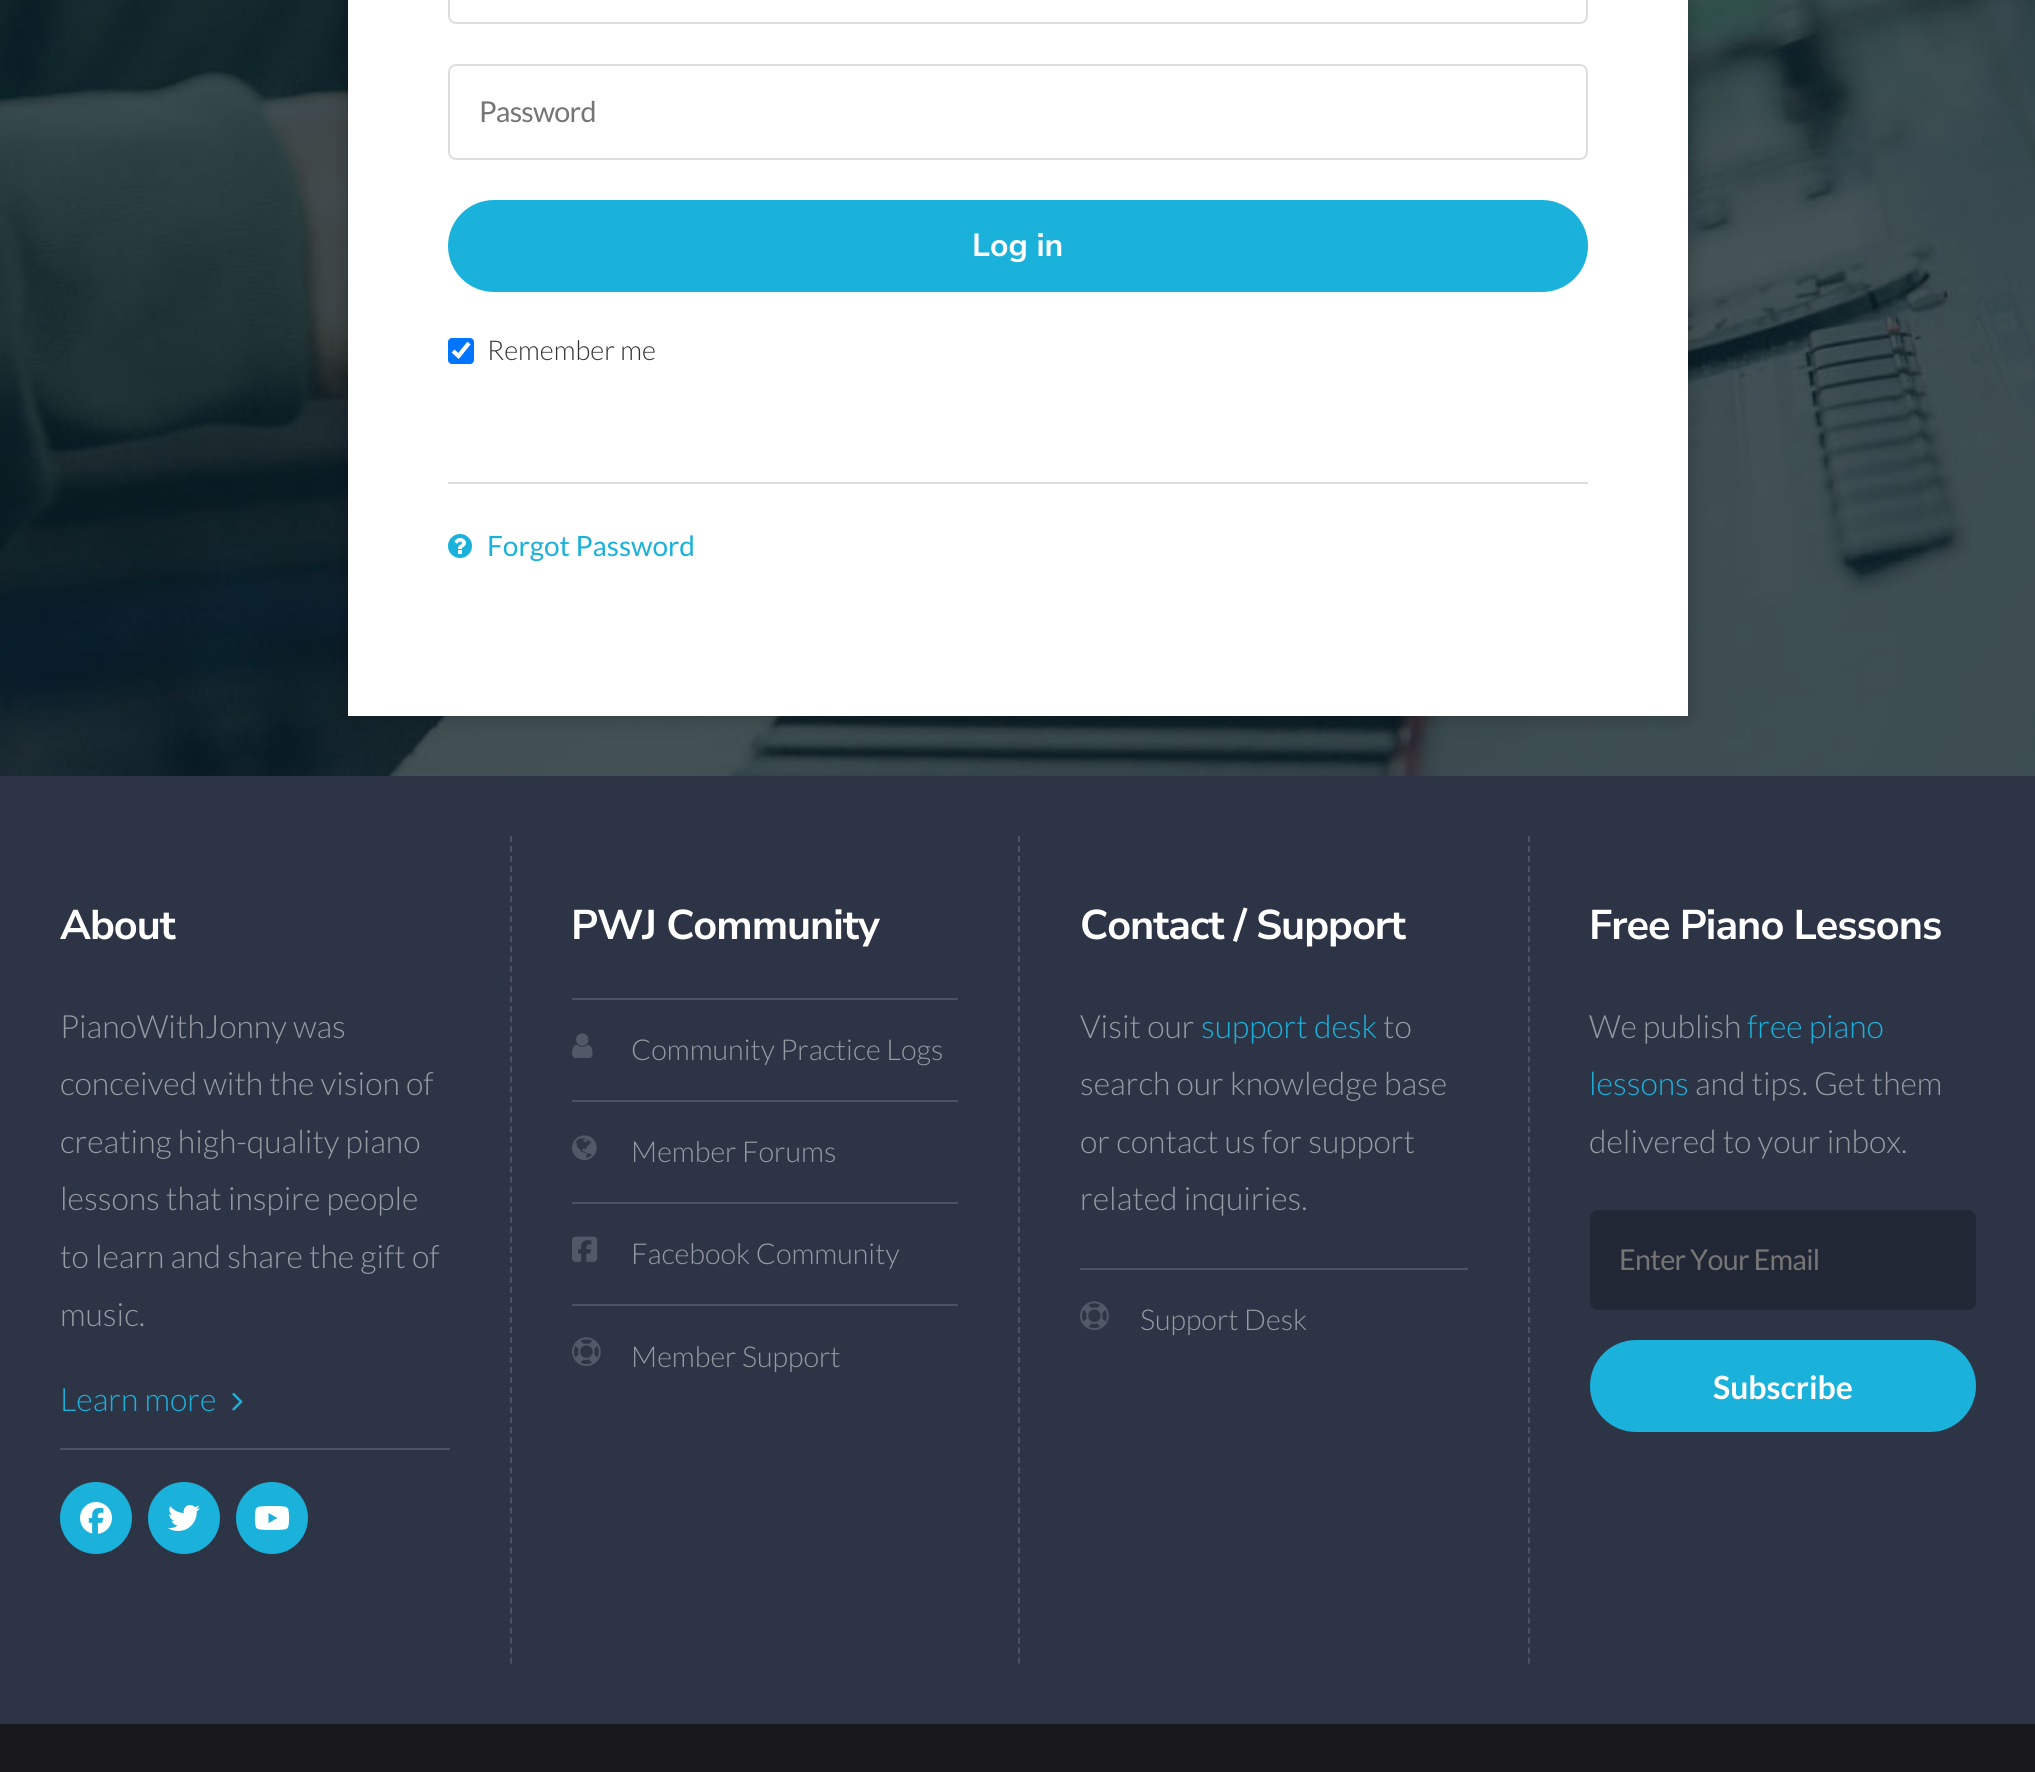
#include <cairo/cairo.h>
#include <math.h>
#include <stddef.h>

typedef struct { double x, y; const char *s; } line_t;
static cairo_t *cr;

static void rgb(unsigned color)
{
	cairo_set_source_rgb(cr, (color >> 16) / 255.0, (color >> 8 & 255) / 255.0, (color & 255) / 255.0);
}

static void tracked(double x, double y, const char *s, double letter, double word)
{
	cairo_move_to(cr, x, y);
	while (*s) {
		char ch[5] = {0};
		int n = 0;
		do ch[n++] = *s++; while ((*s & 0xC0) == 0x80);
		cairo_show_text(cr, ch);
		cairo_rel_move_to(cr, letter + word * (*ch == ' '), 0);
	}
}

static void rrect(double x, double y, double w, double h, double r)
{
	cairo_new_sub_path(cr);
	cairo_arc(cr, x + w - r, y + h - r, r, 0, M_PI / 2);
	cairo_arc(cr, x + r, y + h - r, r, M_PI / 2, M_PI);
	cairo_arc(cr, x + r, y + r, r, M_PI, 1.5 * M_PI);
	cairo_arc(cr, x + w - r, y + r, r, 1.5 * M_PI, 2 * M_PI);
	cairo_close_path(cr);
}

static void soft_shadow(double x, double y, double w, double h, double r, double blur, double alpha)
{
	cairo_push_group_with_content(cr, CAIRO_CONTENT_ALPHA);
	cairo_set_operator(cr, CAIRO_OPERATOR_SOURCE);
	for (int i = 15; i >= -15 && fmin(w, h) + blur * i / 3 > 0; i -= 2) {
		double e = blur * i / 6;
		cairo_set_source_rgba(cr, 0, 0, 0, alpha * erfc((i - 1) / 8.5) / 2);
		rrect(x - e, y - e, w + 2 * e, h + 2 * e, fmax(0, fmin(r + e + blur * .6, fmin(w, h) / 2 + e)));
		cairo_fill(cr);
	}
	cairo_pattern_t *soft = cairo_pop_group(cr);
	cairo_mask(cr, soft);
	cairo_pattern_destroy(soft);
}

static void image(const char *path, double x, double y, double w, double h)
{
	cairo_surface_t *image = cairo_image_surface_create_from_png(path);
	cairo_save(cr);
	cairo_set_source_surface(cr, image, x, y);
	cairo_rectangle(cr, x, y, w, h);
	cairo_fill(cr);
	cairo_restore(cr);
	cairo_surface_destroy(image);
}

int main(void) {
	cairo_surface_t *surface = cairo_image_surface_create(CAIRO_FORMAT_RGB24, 2035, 1772);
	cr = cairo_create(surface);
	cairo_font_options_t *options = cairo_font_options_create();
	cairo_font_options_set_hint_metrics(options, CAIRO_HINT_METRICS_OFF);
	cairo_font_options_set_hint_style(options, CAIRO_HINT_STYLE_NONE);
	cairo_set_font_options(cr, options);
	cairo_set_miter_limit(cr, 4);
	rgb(0x19191d);
	cairo_paint(cr);
	image("img/1.png", 0, 0, 2035, 776);
	rgb(0x000000);
	soft_shadow(348, -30, 1340, 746, 0, 10, 0.25);
	rgb(0xffffff);
	cairo_rectangle(cr, 348, 0, 1340, 716);
	cairo_fill(cr);
	rrect(449, -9, 1138, 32, 7);
	rgb(0xdddddd);
	cairo_stroke(cr);
	rrect(449, 65, 1138, 94, 7);
	cairo_stroke(cr);
	rgb(0x1ab1db);
	rrect(448, 200, 1140, 92, 46);
	cairo_fill(cr);
	rgb(0x0075ff);
	rrect(448, 338, 26, 26, 4);
	cairo_fill(cr);
	cairo_new_path(cr);
	cairo_move_to(cr, 453, 351);
	cairo_line_to(cr, 458.5, 356);
	cairo_line_to(cr, 469, 343);
	rgb(0xffffff);
	cairo_set_line_width(cr, 4.2);
	cairo_stroke(cr);
	rgb(0xdddddd);
	cairo_rectangle(cr, 448, 482, 1140, 2);
	cairo_fill(cr);
	image("img/2.png", 448, 534, 24, 24);
	rgb(0x2d3446);
	cairo_rectangle(cr, 0, 776, 2035, 948);
	cairo_fill(cr);
	image("img/3.png", 232, 1392, 11, 19);
	rgb(0x4d5262);
	cairo_rectangle(cr, 60, 1448, 390, 2);
	cairo_fill(cr);
	rgb(0x1ab1db);
	cairo_arc(cr, 96, 1518, 36, 0, 2 * M_PI);
	cairo_fill(cr);
	image("img/4.png", 80, 1502, 32, 32);
	cairo_arc(cr, 184, 1518, 36, 0, 2 * M_PI);
	cairo_fill(cr);
	image("img/5.png", 168, 1505, 32, 26);
	cairo_arc(cr, 272, 1518, 36, 0, 2 * M_PI);
	cairo_fill(cr);
	image("img/6.png", 254, 1506, 36, 24);
	cairo_new_path(cr);
	cairo_move_to(cr, 511, 836);
	cairo_line_to(cr, 511, 1664);
	rgb(0x4d5262);
	cairo_set_line_width(cr, 2);
	cairo_set_dash(cr, (double[]){6, 4.02}, 2, 0);
	cairo_stroke(cr);
	cairo_rectangle(cr, 572, 998, 386, 2);
	cairo_fill(cr);
	image("img/7.png", 572, 1033, 21, 25);
	cairo_rectangle(cr, 572, 1100, 386, 2);
	cairo_fill(cr);
	image("img/8.png", 572, 1135, 25, 25);
	cairo_rectangle(cr, 572, 1202, 386, 2);
	cairo_fill(cr);
	image("img/9.png", 572, 1236, 26, 26);
	cairo_rectangle(cr, 572, 1304, 386, 2);
	cairo_fill(cr);
	image("img/10.png", 572, 1337, 29, 29);
	cairo_new_path(cr);
	cairo_move_to(cr, 1019, 836);
	cairo_line_to(cr, 1019, 1664);
	cairo_stroke(cr);
	cairo_rectangle(cr, 1080, 1268, 388, 2);
	cairo_fill(cr);
	image("img/10.png", 1080, 1301, 29, 29);
	cairo_new_path(cr);
	cairo_move_to(cr, 1529, 836);
	cairo_line_to(cr, 1529, 1664);
	cairo_stroke(cr);
	rgb(0x222735);
	rrect(1590, 1210, 386, 100, 8);
	cairo_fill(cr);
	rgb(0x1ab1db);
	rrect(1590, 1340, 386, 92, 46);
	cairo_fill(cr);
	cairo_select_font_face(cr, "Lato", CAIRO_FONT_SLANT_NORMAL, CAIRO_FONT_WEIGHT_NORMAL);
	cairo_set_font_size(cr, 28.75);
	rgb(0x757575);
	tracked(479, 122, "Password", -0.75, 0);
	cairo_select_font_face(cr, "Nunito Sans", CAIRO_FONT_SLANT_NORMAL, CAIRO_FONT_WEIGHT_BOLD);
	cairo_set_font_size(cr, 32);
	rgb(0xffffff);
	cairo_move_to(cr, 972, 256);
	cairo_show_text(cr, "Log in");
	cairo_select_font_face(cr, "Lato Light", CAIRO_FONT_SLANT_NORMAL, CAIRO_FONT_WEIGHT_NORMAL);
	cairo_set_font_size(cr, 27.25);
	rgb(0x333333);
	cairo_move_to(cr, 487, 360);
	cairo_show_text(cr, "Remember me");
	cairo_select_font_face(cr, "Lato", CAIRO_FONT_SLANT_NORMAL, CAIRO_FONT_WEIGHT_NORMAL);
	cairo_set_font_size(cr, 28);
	rgb(0x1ab1db);
	cairo_move_to(cr, 487, 556);
	cairo_show_text(cr, "Forgot Password");
	cairo_select_font_face(cr, "Nunito Sans", CAIRO_FONT_SLANT_NORMAL, CAIRO_FONT_WEIGHT_BOLD);
	cairo_set_font_size(cr, 41.5);
	rgb(0xffffff);
	tracked(60, 939, "About", -1, 0);
	cairo_select_font_face(cr, "Lato Light", CAIRO_FONT_SLANT_NORMAL, CAIRO_FONT_WEIGHT_NORMAL);
	cairo_set_font_size(cr, 32);
	rgb(0x969aa3);
	{
		static const line_t items[] = {
			{60, 1038, "PianoWithJonny was"},
			{60, 1095, "conceived with the vision of"},
			{60, 1153, "creating high-quality piano"},
			{60, 1210, "lessons that inspire people"},
			{60, 1268, "to learn and share the gift of"},
			{60, 1326, "music."},
		};
		for (size_t i = 0; i < sizeof items / sizeof *items; i++) {
			cairo_move_to(cr, items[i].x, items[i].y);
			cairo_show_text(cr, items[i].s);
		}
	}
	rgb(0x1ab1db);
	cairo_move_to(cr, 60, 1411);
	cairo_show_text(cr, "Learn more");
	cairo_select_font_face(cr, "Nunito Sans", CAIRO_FONT_SLANT_NORMAL, CAIRO_FONT_WEIGHT_BOLD);
	cairo_set_font_size(cr, 41.5);
	rgb(0xffffff);
	tracked(571, 939, "PWJ Community", -1, 0);
	cairo_select_font_face(cr, "Lato Light", CAIRO_FONT_SLANT_NORMAL, CAIRO_FONT_WEIGHT_NORMAL);
	cairo_set_font_size(cr, 28.75);
	rgb(0x969aa3);
	{
		static const line_t items[] = {
			{631, 1060, "Community Practice Logs"},
			{631, 1162, "Member Forums"},
			{631, 1264, "Facebook Community"},
			{631, 1367, "Member Support"},
		};
		for (size_t i = 0; i < sizeof items / sizeof *items; i++) {
			cairo_move_to(cr, items[i].x, items[i].y);
			cairo_show_text(cr, items[i].s);
		}
	}
	cairo_select_font_face(cr, "Nunito Sans", CAIRO_FONT_SLANT_NORMAL, CAIRO_FONT_WEIGHT_BOLD);
	cairo_set_font_size(cr, 41.5);
	rgb(0xffffff);
	tracked(1080, 939, "Contact / Support", -1, 0);
	cairo_select_font_face(cr, "Lato Light", CAIRO_FONT_SLANT_NORMAL, CAIRO_FONT_WEIGHT_NORMAL);
	cairo_set_font_size(cr, 32);
	rgb(0x969aa3);
	cairo_move_to(cr, 1080, 1038);
	cairo_show_text(cr, "Visit our");
	rgb(0x1ab1db);
	cairo_move_to(cr, 1201, 1038);
	cairo_show_text(cr, "support desk");
	rgb(0x969aa3);
	{
		static const line_t items[] = {
			{1383, 1038, "to"},
			{1080, 1095, "search our knowledge base"},
			{1080, 1153, "or contact us for support"},
			{1080, 1210, "related inquiries."},
		};
		for (size_t i = 0; i < sizeof items / sizeof *items; i++) {
			cairo_move_to(cr, items[i].x, items[i].y);
			cairo_show_text(cr, items[i].s);
		}
	}
	cairo_set_font_size(cr, 28.75);
	cairo_move_to(cr, 1140, 1330);
	cairo_show_text(cr, "Support Desk");
	cairo_select_font_face(cr, "Nunito Sans", CAIRO_FONT_SLANT_NORMAL, CAIRO_FONT_WEIGHT_BOLD);
	cairo_set_font_size(cr, 41.5);
	rgb(0xffffff);
	tracked(1589, 939, "Free Piano Lessons", -1, 0);
	cairo_select_font_face(cr, "Lato Light", CAIRO_FONT_SLANT_NORMAL, CAIRO_FONT_WEIGHT_NORMAL);
	cairo_set_font_size(cr, 32);
	rgb(0x969aa3);
	cairo_move_to(cr, 1589, 1038);
	cairo_show_text(cr, "We publish");
	rgb(0x1ab1db);
	cairo_move_to(cr, 1747, 1038);
	cairo_show_text(cr, "free piano");
	cairo_move_to(cr, 1589, 1095);
	cairo_show_text(cr, "lessons");
	rgb(0x969aa3);
	cairo_move_to(cr, 1695, 1095);
	cairo_show_text(cr, "and tips. Get them");
	cairo_move_to(cr, 1589, 1153);
	cairo_show_text(cr, "delivered to your inbox.");
	cairo_select_font_face(cr, "Lato", CAIRO_FONT_SLANT_NORMAL, CAIRO_FONT_WEIGHT_NORMAL);
	cairo_set_font_size(cr, 28.75);
	rgb(0x757575);
	tracked(1619, 1270, "Enter Your Email", -0.75, 0);
	cairo_select_font_face(cr, "Lato", CAIRO_FONT_SLANT_NORMAL, CAIRO_FONT_WEIGHT_BOLD);
	cairo_set_font_size(cr, 32);
	rgb(0xffffff);
	cairo_move_to(cr, 1713, 1399);
	cairo_show_text(cr, "Subscribe");
	cairo_surface_write_to_png(surface, "page.png");
	cairo_font_options_destroy(options);
	cairo_destroy(cr);
	cairo_surface_destroy(surface);
	return 0;
}
